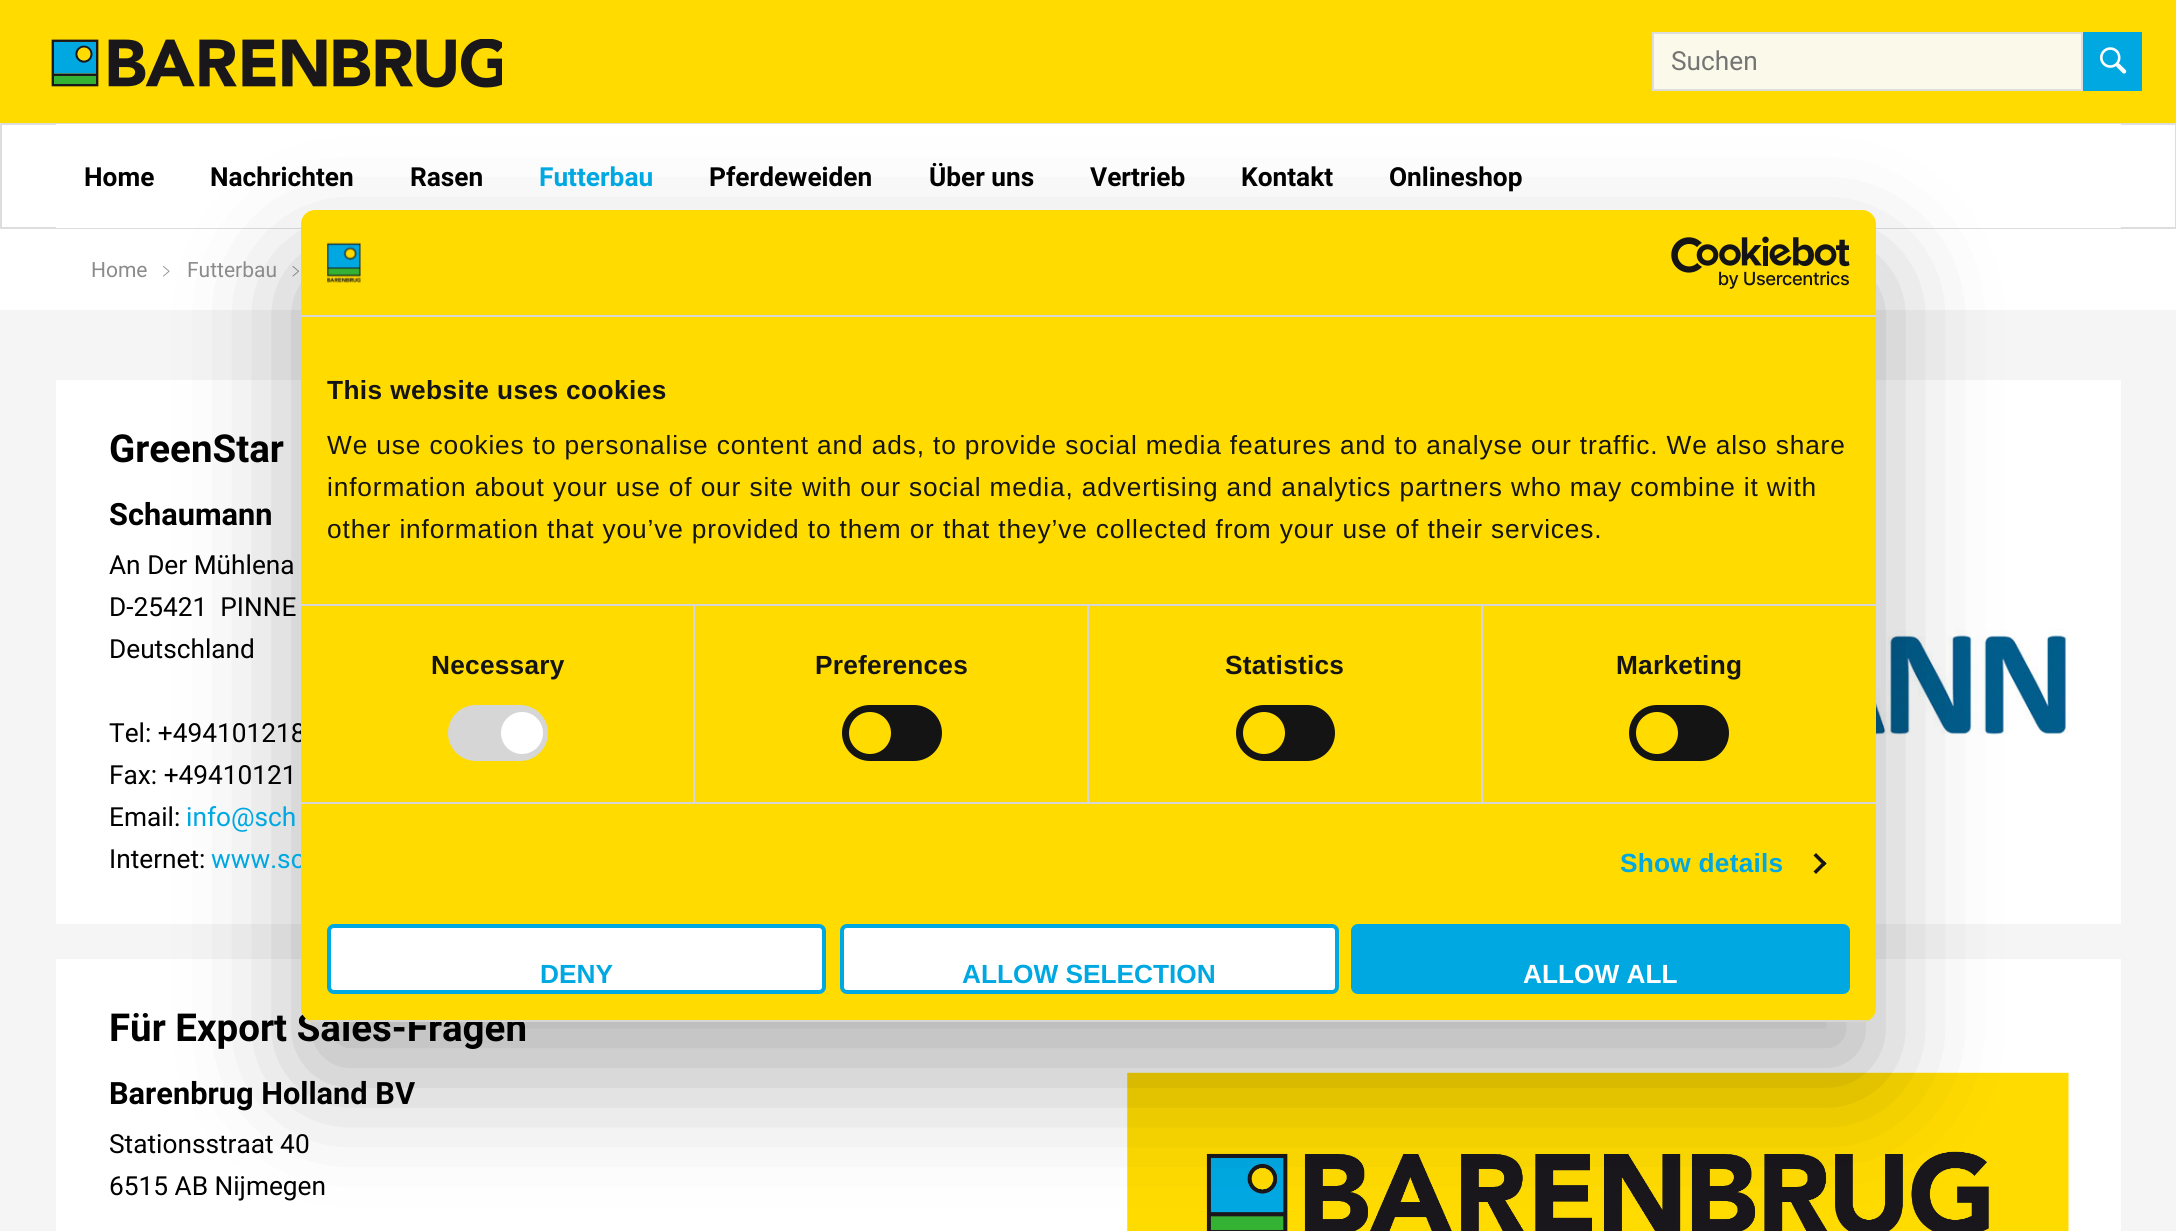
#include <cairo/cairo.h>
#include <math.h>
#include <stddef.h>

typedef struct { double x, y; const char *s; } line_t;
static cairo_t *cr;

static void rgb(unsigned color)
{
	cairo_set_source_rgb(cr, (color >> 16) / 255.0, (color >> 8 & 255) / 255.0, (color & 255) / 255.0);
}

static void tracked(double x, double y, const char *s, double letter, double word)
{
	cairo_move_to(cr, x, y);
	while (*s) {
		char ch[5] = {0};
		int n = 0;
		do ch[n++] = *s++; while ((*s & 0xC0) == 0x80);
		cairo_show_text(cr, ch);
		cairo_rel_move_to(cr, letter + word * (*ch == ' '), 0);
	}
}

static void rrect(double x, double y, double w, double h, double r)
{
	cairo_new_sub_path(cr);
	cairo_arc(cr, x + w - r, y + h - r, r, 0, M_PI / 2);
	cairo_arc(cr, x + r, y + h - r, r, M_PI / 2, M_PI);
	cairo_arc(cr, x + r, y + r, r, M_PI, 1.5 * M_PI);
	cairo_arc(cr, x + w - r, y + r, r, 1.5 * M_PI, 2 * M_PI);
	cairo_close_path(cr);
}

static void soft_shadow(double x, double y, double w, double h, double r, double blur, double alpha)
{
	cairo_push_group_with_content(cr, CAIRO_CONTENT_ALPHA);
	cairo_set_operator(cr, CAIRO_OPERATOR_SOURCE);
	for (int i = 15; i >= -15 && fmin(w, h) + blur * i / 3 > 0; i -= 2) {
		double e = blur * i / 6;
		cairo_set_source_rgba(cr, 0, 0, 0, alpha * erfc((i - 1) / 8.5) / 2);
		rrect(x - e, y - e, w + 2 * e, h + 2 * e, fmax(0, fmin(r + e + blur * .6, fmin(w, h) / 2 + e)));
		cairo_fill(cr);
	}
	cairo_pattern_t *soft = cairo_pop_group(cr);
	cairo_mask(cr, soft);
	cairo_pattern_destroy(soft);
}

static void image(const char *path, double x, double y, double w, double h)
{
	cairo_surface_t *image = cairo_image_surface_create_from_png(path);
	cairo_save(cr);
	cairo_set_source_surface(cr, image, x, y);
	cairo_rectangle(cr, x, y, w, h);
	cairo_fill(cr);
	cairo_restore(cr);
	cairo_surface_destroy(image);
}

int main(void) {
	cairo_surface_t *surface = cairo_image_surface_create(CAIRO_FORMAT_RGB24, 2176, 1231);
	cr = cairo_create(surface);
	cairo_font_options_t *options = cairo_font_options_create();
	cairo_font_options_set_hint_metrics(options, CAIRO_HINT_METRICS_OFF);
	cairo_font_options_set_hint_style(options, CAIRO_HINT_STYLE_NONE);
	cairo_set_font_options(cr, options);
	cairo_set_miter_limit(cr, 4);
	rgb(0xffffff);
	cairo_paint(cr);
	rgb(0xffdb00);
	cairo_rectangle(cr, 0, 0, 2176, 123);
	cairo_fill(cr);
	image("img/1.png", 51, 39, 451, 49);
	rgb(0xfbf9ea);
	cairo_rectangle(cr, 1653, 33, 429, 57);
	cairo_fill_preserve(cr);
	rgb(0xdddddd);
	cairo_stroke(cr);
	rgb(0x00a8e2);
	cairo_rectangle(cr, 2083, 32, 59, 59);
	cairo_fill(cr);
	image("img/2.png", 2100, 47, 27, 27);
	cairo_rectangle(cr, 1, 124, 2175, 104);
	rgb(0xdddddd);
	cairo_stroke(cr);
	rgb(0xffffff);
	cairo_rectangle(cr, 56, 124, 2065, 104);
	cairo_fill(cr);
	image("img/3.png", 163, 266, 7, 11);
	image("img/4.png", 292, 266, 7, 11);
	rgb(0xf5f5f5);
	cairo_rectangle(cr, 0, 310, 2176, 921);
	cairo_fill(cr);
	rgb(0xffffff);
	cairo_rectangle(cr, 56, 380, 2065, 544);
	cairo_fill(cr);
	image("img/5.png", 1876, 493, 193, 326);
	cairo_rectangle(cr, 56, 959, 2065, 272);
	cairo_fill(cr);
	image("img/6.png", 1127, 1072, 942, 159);
	rgb(0x000000);
	soft_shadow(301, 266, 1575, 812, 14, 59.5, 0.3);
	cairo_select_font_face(cr, "Roboto", CAIRO_FONT_SLANT_NORMAL, CAIRO_FONT_WEIGHT_NORMAL);
	cairo_set_font_size(cr, 26.25);
	rgb(0x757575);
	cairo_move_to(cr, 1671, 70);
	cairo_show_text(cr, "Suchen");
	cairo_select_font_face(cr, "Roboto", CAIRO_FONT_SLANT_NORMAL, CAIRO_FONT_WEIGHT_BOLD);
	rgb(0x000000);
	{
		static const line_t items[] = {
			{84, 186, "Home"},
			{210, 186, "Nachrichten"},
			{410, 186, "Rasen"},
		};
		for (size_t i = 0; i < sizeof items / sizeof *items; i++) {
			cairo_move_to(cr, items[i].x, items[i].y);
			cairo_show_text(cr, items[i].s);
		}
	}
	rgb(0x00a8e2);
	cairo_move_to(cr, 539, 186);
	cairo_show_text(cr, "Futterbau");
	rgb(0x000000);
	{
		static const line_t items[] = {
			{709, 186, "Pferdeweiden"},
			{929, 186, "Über uns"},
			{1090, 186, "Vertrieb"},
			{1241, 186, "Kontakt"},
			{1389, 186, "Onlineshop"},
		};
		for (size_t i = 0; i < sizeof items / sizeof *items; i++) {
			cairo_move_to(cr, items[i].x, items[i].y);
			cairo_show_text(cr, items[i].s);
		}
	}
	cairo_select_font_face(cr, "Roboto", CAIRO_FONT_SLANT_NORMAL, CAIRO_FONT_WEIGHT_NORMAL);
	cairo_set_font_size(cr, 21);
	rgb(0x8b8b8b);
	cairo_move_to(cr, 91, 277);
	cairo_show_text(cr, "Home");
	cairo_move_to(cr, 187, 277);
	cairo_show_text(cr, "Futterbau");
	cairo_select_font_face(cr, "Roboto", CAIRO_FONT_SLANT_NORMAL, CAIRO_FONT_WEIGHT_BOLD);
	cairo_set_font_size(cr, 38.5);
	rgb(0x000000);
	cairo_move_to(cr, 109, 462);
	cairo_show_text(cr, "GreenStar");
	cairo_set_font_size(cr, 30.75);
	cairo_move_to(cr, 109, 525);
	cairo_show_text(cr, "Schaumann");
	cairo_select_font_face(cr, "Roboto", CAIRO_FONT_SLANT_NORMAL, CAIRO_FONT_WEIGHT_NORMAL);
	cairo_set_font_size(cr, 26.25);
	{
		static const line_t items[] = {
			{109, 574, "An Der Mühlena"},
			{109, 616, "D-25421  PINNE"},
			{109, 658, "Deutschland"},
			{109, 742, "Tel: +494101218"},
			{109, 784, "Fax: +49410121"},
			{109, 826, "Email:"},
		};
		for (size_t i = 0; i < sizeof items / sizeof *items; i++) {
			cairo_move_to(cr, items[i].x, items[i].y);
			cairo_show_text(cr, items[i].s);
		}
	}
	rgb(0x00a8e2);
	cairo_move_to(cr, 186, 826);
	cairo_show_text(cr, "info@sch");
	rgb(0x000000);
	cairo_move_to(cr, 109, 868);
	cairo_show_text(cr, "Internet:");
	rgb(0x00a8e2);
	cairo_move_to(cr, 211, 868);
	cairo_show_text(cr, "www.sc");
	cairo_select_font_face(cr, "Roboto", CAIRO_FONT_SLANT_NORMAL, CAIRO_FONT_WEIGHT_BOLD);
	cairo_set_font_size(cr, 38.5);
	rgb(0x000000);
	cairo_move_to(cr, 109, 1041);
	cairo_show_text(cr, "Für Export Sales-Fragen");
	cairo_set_font_size(cr, 30.75);
	cairo_move_to(cr, 109, 1104);
	cairo_show_text(cr, "Barenbrug Holland BV");
	cairo_select_font_face(cr, "Roboto", CAIRO_FONT_SLANT_NORMAL, CAIRO_FONT_WEIGHT_NORMAL);
	cairo_set_font_size(cr, 26.25);
	cairo_move_to(cr, 109, 1153);
	cairo_show_text(cr, "Stationsstraat 40");
	cairo_move_to(cr, 109, 1195);
	cairo_show_text(cr, "6515 AB Nijmegen");
	rgb(0xffdb00);
	rrect(301, 210, 1575, 812, 14);
	cairo_fill(cr);
	rgb(0xd6d6d6);
	cairo_rectangle(cr, 301, 315, 1575, 2);
	cairo_fill(cr);
	image("img/7.png", 327, 242, 34, 41);
	image("img/8.png", 1671, 236, 179, 53);
	cairo_rectangle(cr, 301, 604, 1575, 2);
	cairo_fill(cr);
	cairo_select_font_face(cr, "Liberation Sans", CAIRO_FONT_SLANT_NORMAL, CAIRO_FONT_WEIGHT_BOLD);
	rgb(0x141414);
	tracked(327, 399, "This website uses cookies", 0.4, 0);
	cairo_select_font_face(cr, "Liberation Sans", CAIRO_FONT_SLANT_NORMAL, CAIRO_FONT_WEIGHT_NORMAL);
	{
		static const line_t items[] = {
			{327, 454, "We use cookies to personalise content and ads, to provide social media features and to analyse our traffic. We also share"},
			{327, 496, "information about your use of our site with our social media, advertising and analytics partners who may combine it with"},
			{327, 538, "other information that you’ve provided to them or that they’ve collected from your use of their services."},
		};
		for (size_t i = 0; i < sizeof items / sizeof *items; i++) {
			tracked(items[i].x, items[i].y, items[i].s, 0.88, 0);
		}
	}
	rgb(0xd6d6d6);
	cairo_rectangle(cr, 301, 802, 1575, 2);
	cairo_fill(cr);
	cairo_rectangle(cr, 693, 606, 2, 196);
	cairo_fill(cr);
	cairo_select_font_face(cr, "Liberation Sans", CAIRO_FONT_SLANT_NORMAL, CAIRO_FONT_WEIGHT_BOLD);
	rgb(0x141414);
	tracked(431, 674, "Necessary", 0.25, 0);
	rgb(0xd6d6d6);
	rrect(448, 705, 100, 56, 28);
	cairo_fill(cr);
	rgb(0xffffff);
	cairo_arc(cr, 522, 733, 21, 0, 2 * M_PI);
	cairo_fill(cr);
	rgb(0xd6d6d6);
	cairo_rectangle(cr, 1087, 606, 2, 196);
	cairo_fill(cr);
	rgb(0x141414);
	tracked(815, 674, "Preferences", 0.25, 0);
	rrect(842, 705, 100, 56, 28);
	cairo_fill(cr);
	rgb(0xffdb00);
	cairo_arc(cr, 870, 733, 21, 0, 2 * M_PI);
	cairo_fill(cr);
	rgb(0xd6d6d6);
	cairo_rectangle(cr, 1481, 606, 2, 196);
	cairo_fill(cr);
	rgb(0x141414);
	tracked(1225, 674, "Statistics", 0.25, 0);
	rrect(1236, 705, 99, 56, 28);
	cairo_fill(cr);
	rgb(0xffdb00);
	cairo_arc(cr, 1264, 733, 21, 0, 2 * M_PI);
	cairo_fill(cr);
	rgb(0x141414);
	tracked(1616, 674, "Marketing", 0.25, 0);
	rrect(1629, 705, 100, 56, 28);
	cairo_fill(cr);
	rgb(0xffdb00);
	cairo_arc(cr, 1657, 733, 21, 0, 2 * M_PI);
	cairo_fill(cr);
	rgb(0x00a8e2);
	tracked(1620, 872, "Show details", 0.25, 0);
	rgb(0x141414);
	cairo_new_path(cr);
	cairo_move_to(cr, 1816, 853);
	cairo_line_to(cr, 1826.5, 863.5);
	cairo_line_to(cr, 1824, 866);
	cairo_line_to(cr, 1813.5, 855.5);
	cairo_close_path(cr);
	cairo_fill(cr);
	cairo_new_path(cr);
	cairo_move_to(cr, 1824, 861);
	cairo_line_to(cr, 1826.5, 863.5);
	cairo_line_to(cr, 1816, 874);
	cairo_line_to(cr, 1813.5, 871.5);
	cairo_close_path(cr);
	cairo_fill(cr);
	cairo_save(cr);
	rrect(301, 210, 1575, 812, 14);
	cairo_clip(cr);
	rgb(0xd6d6d6);
	cairo_rectangle(cr, 301, 1020, 1575, 2);
	cairo_fill(cr);
	cairo_restore(cr);
	rgb(0xffffff);
	rrect(329, 926, 495, 66, 5);
	cairo_fill_preserve(cr);
	rgb(0x00a8e2);
	cairo_set_line_width(cr, 4);
	cairo_stroke(cr);
	cairo_move_to(cr, 540, 983);
	cairo_show_text(cr, "DENY");
	rgb(0xffffff);
	rrect(842, 926, 495, 66, 5);
	cairo_fill_preserve(cr);
	rgb(0x00a8e2);
	cairo_stroke(cr);
	cairo_move_to(cr, 962, 983);
	cairo_show_text(cr, "ALLOW SELECTION");
	rrect(1353, 926, 495, 66, 5);
	cairo_fill_preserve(cr);
	cairo_stroke(cr);
	rgb(0xffffff);
	cairo_move_to(cr, 1523, 983);
	cairo_show_text(cr, "ALLOW ALL");
	cairo_surface_write_to_png(surface, "page.png");
	cairo_font_options_destroy(options);
	cairo_destroy(cr);
	cairo_surface_destroy(surface);
	return 0;
}
